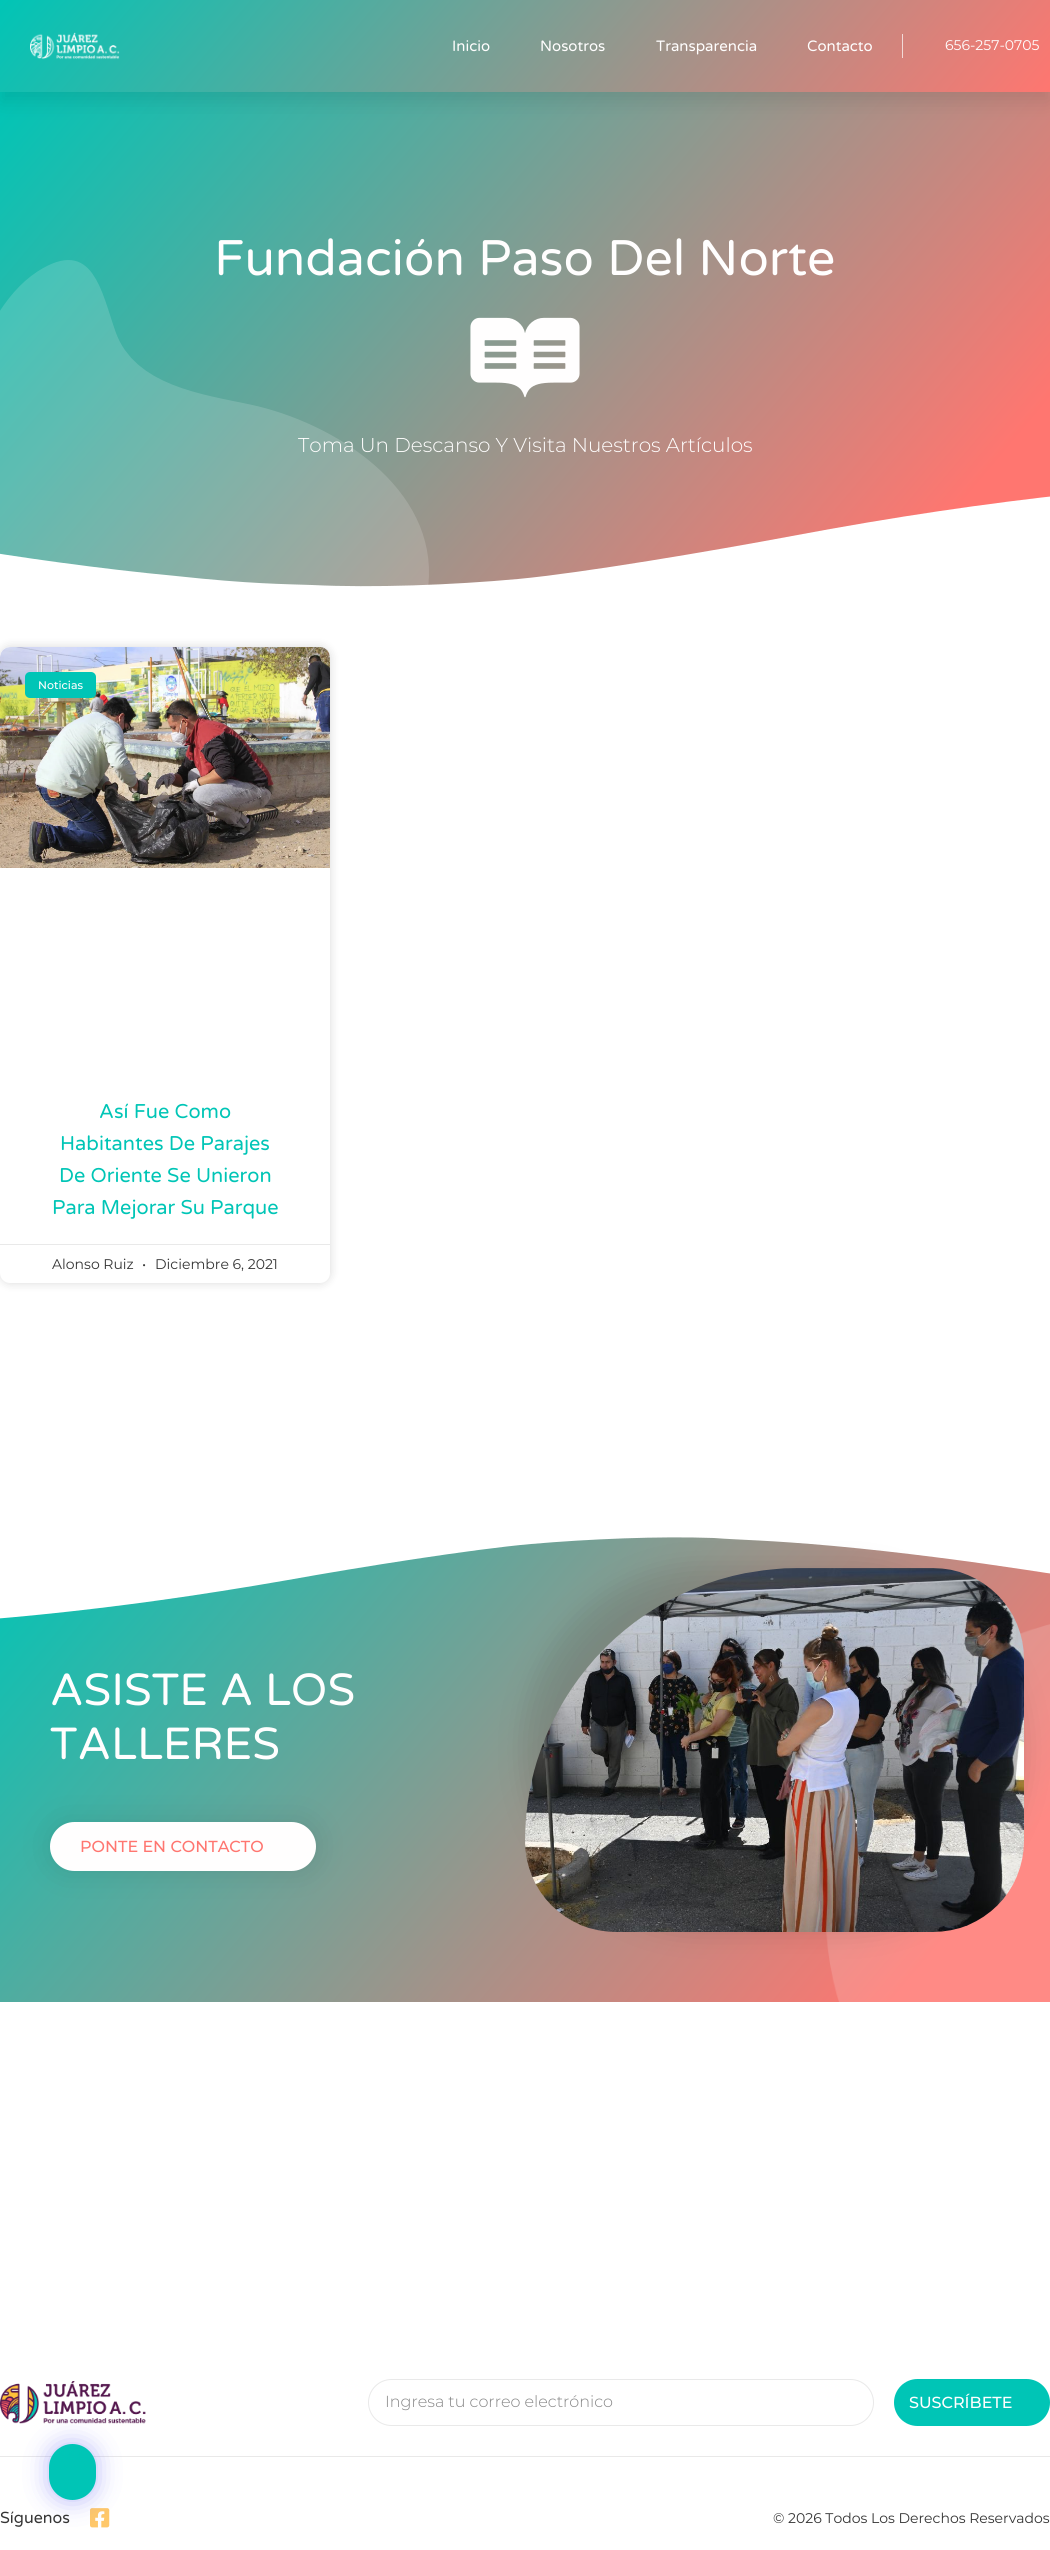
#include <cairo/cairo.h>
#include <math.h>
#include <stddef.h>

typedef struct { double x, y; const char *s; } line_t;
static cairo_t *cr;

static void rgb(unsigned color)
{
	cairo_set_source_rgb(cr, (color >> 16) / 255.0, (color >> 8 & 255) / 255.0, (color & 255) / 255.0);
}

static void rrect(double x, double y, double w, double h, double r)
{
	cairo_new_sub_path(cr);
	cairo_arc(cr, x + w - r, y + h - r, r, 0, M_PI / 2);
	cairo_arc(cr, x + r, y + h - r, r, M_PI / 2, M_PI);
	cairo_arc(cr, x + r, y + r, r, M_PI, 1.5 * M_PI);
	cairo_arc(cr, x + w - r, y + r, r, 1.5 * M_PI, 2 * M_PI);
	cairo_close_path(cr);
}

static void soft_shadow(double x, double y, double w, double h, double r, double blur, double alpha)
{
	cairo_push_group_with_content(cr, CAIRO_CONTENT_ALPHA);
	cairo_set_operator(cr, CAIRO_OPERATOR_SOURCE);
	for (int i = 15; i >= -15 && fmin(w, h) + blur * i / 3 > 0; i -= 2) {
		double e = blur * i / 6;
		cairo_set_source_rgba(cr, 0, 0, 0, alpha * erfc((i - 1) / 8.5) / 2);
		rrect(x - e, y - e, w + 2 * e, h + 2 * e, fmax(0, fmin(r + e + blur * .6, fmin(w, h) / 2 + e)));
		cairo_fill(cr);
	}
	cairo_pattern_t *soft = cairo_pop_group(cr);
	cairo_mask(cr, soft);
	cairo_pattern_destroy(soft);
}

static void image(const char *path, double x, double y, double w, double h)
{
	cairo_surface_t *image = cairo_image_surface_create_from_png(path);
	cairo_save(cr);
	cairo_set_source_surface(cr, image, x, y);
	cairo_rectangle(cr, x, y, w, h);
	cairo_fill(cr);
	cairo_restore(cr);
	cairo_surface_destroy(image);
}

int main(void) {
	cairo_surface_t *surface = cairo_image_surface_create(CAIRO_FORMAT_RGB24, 1050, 2550);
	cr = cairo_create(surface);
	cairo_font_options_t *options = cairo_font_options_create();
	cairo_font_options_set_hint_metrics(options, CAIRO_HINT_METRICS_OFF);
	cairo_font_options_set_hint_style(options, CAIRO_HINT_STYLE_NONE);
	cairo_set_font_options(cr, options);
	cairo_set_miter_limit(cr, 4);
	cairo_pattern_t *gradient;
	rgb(0xffffff);
	cairo_paint(cr);
	gradient = cairo_pattern_create_linear(94, -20, 956, 704);
	cairo_pattern_add_color_stop_rgba(gradient, 0, 0, 0.773, 0.714, 1);
	cairo_pattern_add_color_stop_rgba(gradient, 0.89, 1, 0.463, 0.439, 1);
	cairo_set_source(cr, gradient);
	cairo_pattern_destroy(gradient);
	cairo_rectangle(cr, 0, 92, 1050, 495);
	cairo_fill(cr);
	rgb(0x000000);
	soft_shadow(0, 10, 1050, 92, 0, 10, 0.1);
	gradient = cairo_pattern_create_linear(194, -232, 856, 324);
	cairo_pattern_add_color_stop_rgba(gradient, 0, 0, 0.773, 0.714, 1);
	cairo_pattern_add_color_stop_rgba(gradient, 1, 1, 0.463, 0.439, 1);
	cairo_set_source(cr, gradient);
	cairo_pattern_destroy(gradient);
	cairo_rectangle(cr, 0, 0, 1050, 92);
	cairo_fill(cr);
	gradient = cairo_pattern_create_linear(194, -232, 856, 324);
	cairo_pattern_add_color_stop_rgba(gradient, 0, 0.702, 0.933, 0.914, 1);
	cairo_pattern_add_color_stop_rgba(gradient, 1, 1, 0.839, 0.831, 1);
	cairo_set_source(cr, gradient);
	cairo_pattern_destroy(gradient);
	cairo_rectangle(cr, 902, 34, 1, 24);
	cairo_fill(cr);
	image("img/1.png", 30, 32, 90, 28);
	image("img/2.png", 0, 260, 429, 327);
	image("img/3.png", 470, 317, 110, 81);
	rgb(0xffffff);
	cairo_new_path(cr);
	cairo_move_to(cr, 312, 585);
	cairo_curve_to(cr, 373, 588, 452, 585, 518, 579);
	cairo_curve_to(cr, 582, 573, 712, 551, 792, 536);
	cairo_curve_to(cr, 999, 497, 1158, 483, 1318, 476);
	cairo_curve_to(cr, 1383, 474, 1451, 472, 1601, 479);
	cairo_curve_to(cr, 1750, 487, 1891, 510, 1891, 510);
	cairo_line_to(cr, 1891, 593);
	cairo_line_to(cr, -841, 593);
	cairo_line_to(cr, -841, 557);
	cairo_curve_to(cr, -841, 557, -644, 518, -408, 520);
	cairo_curve_to(cr, -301, 521, -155, 528, -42, 547);
	cairo_curve_to(cr, 16, 557, 101, 569, 176, 576);
	cairo_curve_to(cr, 250, 584, 284, 584, 312, 585);
	cairo_close_path(cr);
	cairo_fill(cr);
	rgb(0x000000);
	soft_shadow(0, 647, 330, 636, 10, 5, 0.15);
	rgb(0xffffff);
	rrect(0, 647, 330, 636, 10);
	cairo_fill(cr);
	image("img/4.png", 0, 647, 330, 221);
	rgb(0x00c5b6);
	rrect(25, 672, 71, 26, 5);
	cairo_fill(cr);
	rgb(0xe9e9e9);
	cairo_rectangle(cr, 0, 1244, 330, 1);
	cairo_fill(cr);
	gradient = cairo_pattern_create_linear(101, 1412, 949, 2123);
	cairo_pattern_add_color_stop_rgba(gradient, 0, 0, 0.773, 0.714, 1);
	cairo_pattern_add_color_stop_rgba(gradient, 0.89, 1, 0.463, 0.439, 1);
	cairo_set_source(cr, gradient);
	cairo_pattern_destroy(gradient);
	cairo_rectangle(cr, 0, 1537, 1050, 465);
	cairo_fill(cr);
	rgb(0xffffff);
	cairo_new_path(cr);
	cairo_move_to(cr, 714, 1538);
	cairo_curve_to(cr, 659, 1536, 589, 1539, 531, 1544);
	cairo_curve_to(cr, 474, 1549, 360, 1567, 288, 1580);
	cairo_curve_to(cr, 105, 1612, -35, 1624, -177, 1629);
	cairo_curve_to(cr, -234, 1631, -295, 1633, -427, 1627);
	cairo_curve_to(cr, -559, 1621, -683, 1601, -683, 1601);
	cairo_line_to(cr, -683, 1532);
	cairo_line_to(cr, 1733, 1532);
	cairo_line_to(cr, 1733, 1562);
	cairo_curve_to(cr, 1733, 1562, 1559, 1595, 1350, 1593);
	cairo_curve_to(cr, 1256, 1592, 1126, 1586, 1027, 1570);
	cairo_curve_to(cr, 975, 1562, 900, 1552, 834, 1546);
	cairo_curve_to(cr, 768, 1540, 739, 1540, 714, 1538);
	cairo_close_path(cr);
	cairo_fill(cr);
	rgb(0x000000);
	soft_shadow(50, 1822, 266, 49, 24.5, 15, 0.1);
	rgb(0xfffefe);
	rrect(50, 1822, 266, 49, 24.5);
	cairo_fill(cr);
	image("img/6.png", 826, 1624, 224, 378);
	rgb(0x000000);
	soft_shadow(525, 1568, 499, 364, 273, 15, 0.12);
	image("img/5.png", 525, 1568, 499, 364);
	image("img/7.png", 0, 2381, 146, 43);
	rrect(368.5, 2379.5, 505, 46, 23);
	rgb(0xe9e9e9);
	cairo_set_line_width(cr, 1);
	cairo_stroke(cr);
	rgb(0x00c5b6);
	rrect(894, 2379, 156, 47, 23.5);
	cairo_fill(cr);
	rgb(0xe9e9e9);
	cairo_rectangle(cr, 0, 2456, 1050, 1);
	cairo_fill(cr);
	image("img/8.png", 90, 2508, 20, 20);
	rgb(0x3538f0);
	soft_shadow(49, 2444, 47, 56, 23.5, 12.5, 0.35);
	rgb(0x00c5b6);
	rrect(49, 2444, 47, 56, 23.5);
	cairo_fill(cr);
	cairo_select_font_face(cr, "Varela Round", CAIRO_FONT_SLANT_NORMAL, CAIRO_FONT_WEIGHT_NORMAL);
	cairo_set_font_size(cr, 15);
	rgb(0xfffefe);
	{
		static const line_t items[] = {
			{452, 51, "Inicio"},
			{540, 51, "Nosotros"},
			{656, 51, "Transparencia"},
			{807, 51, "Contacto"},
		};
		for (size_t i = 0; i < sizeof items / sizeof *items; i++) {
			cairo_move_to(cr, items[i].x, items[i].y);
			cairo_show_text(cr, items[i].s);
		}
	}
	cairo_select_font_face(cr, "Montserrat", CAIRO_FONT_SLANT_NORMAL, CAIRO_FONT_WEIGHT_NORMAL);
	cairo_set_font_size(cr, 14);
	cairo_move_to(cr, 945, 50);
	cairo_show_text(cr, "656-257-0705");
	cairo_select_font_face(cr, "Varela Round", CAIRO_FONT_SLANT_NORMAL, CAIRO_FONT_WEIGHT_NORMAL);
	cairo_set_font_size(cr, 50);
	cairo_move_to(cr, 214, 275);
	cairo_show_text(cr, "Fundación Paso Del Norte");
	cairo_select_font_face(cr, "Montserrat Light", CAIRO_FONT_SLANT_NORMAL, CAIRO_FONT_WEIGHT_NORMAL);
	cairo_set_font_size(cr, 20);
	cairo_move_to(cr, 298, 452);
	cairo_show_text(cr, "Toma Un Descanso Y Visita Nuestros Artículos");
	cairo_select_font_face(cr, "Montserrat Medium", CAIRO_FONT_SLANT_NORMAL, CAIRO_FONT_WEIGHT_NORMAL);
	cairo_set_font_size(cr, 11);
	cairo_move_to(cr, 38, 689);
	cairo_show_text(cr, "Noticias");
	cairo_select_font_face(cr, "Varela Round", CAIRO_FONT_SLANT_NORMAL, CAIRO_FONT_WEIGHT_NORMAL);
	cairo_set_font_size(cr, 20);
	rgb(0x00c5b6);
	{
		static const line_t items[] = {
			{99, 1118, "Así Fue Como"},
			{60, 1150, "Habitantes De Parajes"},
			{59, 1182, "De Oriente Se Unieron"},
			{52, 1214, "Para Mejorar Su Parque"},
		};
		for (size_t i = 0; i < sizeof items / sizeof *items; i++) {
			cairo_move_to(cr, items[i].x, items[i].y);
			cairo_show_text(cr, items[i].s);
		}
	}
	cairo_select_font_face(cr, "Montserrat", CAIRO_FONT_SLANT_NORMAL, CAIRO_FONT_WEIGHT_NORMAL);
	cairo_set_font_size(cr, 14);
	rgb(0x353535);
	{
		static const line_t items[] = {
			{52, 1269, "Alonso Ruiz"},
			{142, 1269, "•"},
			{155, 1269, "Diciembre 6, 2021"},
		};
		for (size_t i = 0; i < sizeof items / sizeof *items; i++) {
			cairo_move_to(cr, items[i].x, items[i].y);
			cairo_show_text(cr, items[i].s);
		}
	}
	cairo_select_font_face(cr, "Varela Round", CAIRO_FONT_SLANT_NORMAL, CAIRO_FONT_WEIGHT_NORMAL);
	cairo_set_font_size(cr, 45);
	rgb(0xfffefe);
	cairo_move_to(cr, 50, 1705);
	cairo_show_text(cr, "ASISTE A LOS");
	cairo_move_to(cr, 50, 1759);
	cairo_show_text(cr, "TALLERES");
	cairo_select_font_face(cr, "Montserrat Medium", CAIRO_FONT_SLANT_NORMAL, CAIRO_FONT_WEIGHT_NORMAL);
	cairo_set_font_size(cr, 16);
	rgb(0xff7670);
	cairo_move_to(cr, 80, 1852);
	cairo_show_text(cr, "PONTE EN CONTACTO");
	cairo_select_font_face(cr, "Montserrat Light", CAIRO_FONT_SLANT_NORMAL, CAIRO_FONT_WEIGHT_NORMAL);
	rgb(0x868686);
	cairo_move_to(cr, 385, 2407);
	cairo_show_text(cr, "Ingresa tu correo electrónico");
	cairo_select_font_face(cr, "Montserrat Medium", CAIRO_FONT_SLANT_NORMAL, CAIRO_FONT_WEIGHT_NORMAL);
	rgb(0xfffefe);
	cairo_move_to(cr, 909, 2408);
	cairo_show_text(cr, "SUSCRÍBETE");
	cairo_select_font_face(cr, "Varela Round", CAIRO_FONT_SLANT_NORMAL, CAIRO_FONT_WEIGHT_NORMAL);
	rgb(0x353535);
	cairo_move_to(cr, 0, 2523);
	cairo_show_text(cr, "Síguenos");
	cairo_select_font_face(cr, "Montserrat", CAIRO_FONT_SLANT_NORMAL, CAIRO_FONT_WEIGHT_NORMAL);
	cairo_set_font_size(cr, 14);
	cairo_move_to(cr, 773, 2523);
	cairo_show_text(cr, "© 2026 Todos Los Derechos Reservados");
	cairo_surface_write_to_png(surface, "page.png");
	cairo_font_options_destroy(options);
	cairo_destroy(cr);
	cairo_surface_destroy(surface);
	return 0;
}
